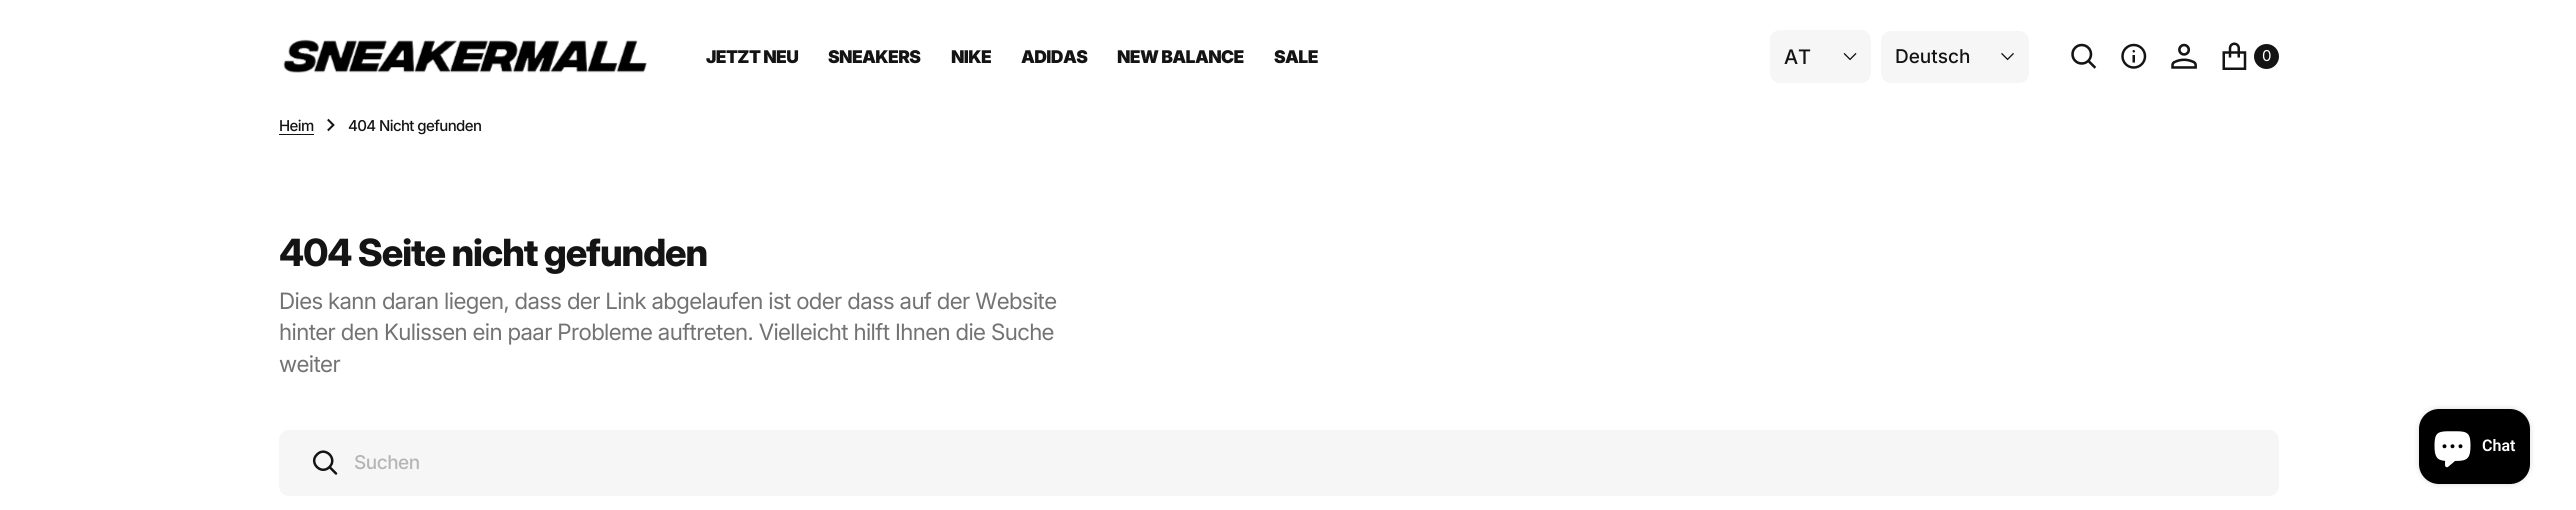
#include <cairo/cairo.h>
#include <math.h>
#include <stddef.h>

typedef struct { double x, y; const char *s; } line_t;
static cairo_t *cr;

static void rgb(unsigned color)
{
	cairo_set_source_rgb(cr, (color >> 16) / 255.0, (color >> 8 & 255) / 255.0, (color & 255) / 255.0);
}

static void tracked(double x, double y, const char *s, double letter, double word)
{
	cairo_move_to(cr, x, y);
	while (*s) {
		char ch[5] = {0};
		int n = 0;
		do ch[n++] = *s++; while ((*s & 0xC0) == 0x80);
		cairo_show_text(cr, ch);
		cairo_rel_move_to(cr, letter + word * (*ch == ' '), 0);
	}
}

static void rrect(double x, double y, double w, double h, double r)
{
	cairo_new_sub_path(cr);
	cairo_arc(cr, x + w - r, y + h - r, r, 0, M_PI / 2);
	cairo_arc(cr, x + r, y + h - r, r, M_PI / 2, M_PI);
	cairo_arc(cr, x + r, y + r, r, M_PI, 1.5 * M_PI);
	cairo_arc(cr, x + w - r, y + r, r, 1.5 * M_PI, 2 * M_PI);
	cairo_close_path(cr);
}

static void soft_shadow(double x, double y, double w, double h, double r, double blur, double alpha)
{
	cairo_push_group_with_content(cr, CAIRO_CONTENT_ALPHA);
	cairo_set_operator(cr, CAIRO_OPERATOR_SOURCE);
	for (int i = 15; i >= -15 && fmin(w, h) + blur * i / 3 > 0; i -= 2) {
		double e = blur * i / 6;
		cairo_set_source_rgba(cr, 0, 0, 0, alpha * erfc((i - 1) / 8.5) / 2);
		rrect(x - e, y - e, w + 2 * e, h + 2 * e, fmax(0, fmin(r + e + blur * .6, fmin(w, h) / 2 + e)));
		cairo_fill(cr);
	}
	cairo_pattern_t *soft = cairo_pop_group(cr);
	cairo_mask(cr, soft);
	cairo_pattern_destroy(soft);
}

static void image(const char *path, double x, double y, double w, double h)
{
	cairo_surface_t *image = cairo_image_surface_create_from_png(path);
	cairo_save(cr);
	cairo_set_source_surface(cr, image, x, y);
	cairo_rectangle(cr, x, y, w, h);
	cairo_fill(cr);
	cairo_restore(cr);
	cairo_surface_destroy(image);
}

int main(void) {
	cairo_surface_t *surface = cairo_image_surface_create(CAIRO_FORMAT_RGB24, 2576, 510);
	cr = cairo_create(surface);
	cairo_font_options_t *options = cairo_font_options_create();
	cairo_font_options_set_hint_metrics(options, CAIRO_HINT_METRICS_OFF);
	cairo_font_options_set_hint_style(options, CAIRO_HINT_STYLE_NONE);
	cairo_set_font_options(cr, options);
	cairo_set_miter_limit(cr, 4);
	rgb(0xffffff);
	cairo_paint(cr);
	image("img/1.png", 283, 39, 364, 34);
	rgb(0xf6f6f6);
	rrect(1770, 30, 101, 53, 10);
	cairo_fill(cr);
	image("img/2.png", 1843, 53, 14, 8);
	rrect(1881, 31, 148, 52, 10);
	cairo_fill(cr);
	image("img/3.png", 2001, 53, 13, 8);
	image("img/4.png", 2071, 43, 26, 26);
	image("img/5.png", 2121, 43, 26, 26);
	image("img/6.png", 2171, 43, 26, 26);
	image("img/7.png", 2222, 42, 25, 28);
	rgb(0x141414);
	cairo_arc(cr, 2266.5, 56.5, 12.5, 0, 2 * M_PI);
	cairo_fill(cr);
	cairo_rectangle(cr, 279, 134, 35, 1);
	cairo_fill(cr);
	image("img/8.png", 327, 118, 8, 14);
	rgb(0xf6f6f6);
	rrect(279, 430, 2000, 66, 10);
	cairo_fill(cr);
	cairo_new_path(cr);
	cairo_move_to(cr, 336, 473.5);
	cairo_line_to(cr, 329.5, 467);
	cairo_move_to(cr, 329.5, 467);
	cairo_curve_to(cr, 338, 458.5, 325, 446, 317, 454.5);
	cairo_curve_to(cr, 308.5, 462.5, 321, 475.5, 329.5, 467);
	cairo_close_path(cr);
	rgb(0x141414);
	cairo_set_line_width(cr, 2.5);
	cairo_set_line_cap(cr, CAIRO_LINE_CAP_ROUND);
	cairo_set_line_join(cr, CAIRO_LINE_JOIN_ROUND);
	cairo_stroke(cr);
	rgb(0x000000);
	soft_shadow(2419, 409, 111, 75, 20, 3, 0.15);
	rgb(0x000000);
	rrect(2419, 409, 111, 75, 20);
	cairo_fill(cr);
	image("img/9.png", 2434, 431, 37, 37);
	cairo_select_font_face(cr, "Inter Black", CAIRO_FONT_SLANT_NORMAL, CAIRO_FONT_WEIGHT_NORMAL);
	cairo_set_font_size(cr, 17.5);
	rgb(0x141414);
	{
		static const line_t items[] = {
			{706, 63, "JETZT NEU"},
			{828, 63, "SNEAKERS"},
			{951, 63, "NIKE"},
			{1021, 63, "ADIDAS"},
			{1117, 63, "NEW BALANCE"},
			{1274, 63, "SALE"},
		};
		for (size_t i = 0; i < sizeof items / sizeof *items; i++) {
			tracked(items[i].x, items[i].y, items[i].s, -0.6, 0);
		}
	}
	cairo_select_font_face(cr, "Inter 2 Medium", CAIRO_FONT_SLANT_NORMAL, CAIRO_FONT_WEIGHT_NORMAL);
	cairo_set_font_size(cr, 20);
	cairo_move_to(cr, 1784, 64);
	cairo_show_text(cr, "AT");
	cairo_select_font_face(cr, "Inter Medium", CAIRO_FONT_SLANT_NORMAL, CAIRO_FONT_WEIGHT_NORMAL);
	cairo_set_font_size(cr, 19);
	cairo_move_to(cr, 1895, 63);
	cairo_show_text(cr, "Deutsch");
	cairo_select_font_face(cr, "Inter 2", CAIRO_FONT_SLANT_NORMAL, CAIRO_FONT_WEIGHT_NORMAL);
	cairo_set_font_size(cr, 15);
	rgb(0xffffff);
	tracked(2262, 61, "0", -0.6, 0);
	cairo_select_font_face(cr, "Inter Medium", CAIRO_FONT_SLANT_NORMAL, CAIRO_FONT_WEIGHT_NORMAL);
	rgb(0x141414);
	tracked(279, 131, "Heim", -0.6, 0);
	tracked(348, 131, "404 Nicht gefunden", -0.6, 0);
	cairo_select_font_face(cr, "Inter ExtraBold", CAIRO_FONT_SLANT_NORMAL, CAIRO_FONT_WEIGHT_NORMAL);
	cairo_set_font_size(cr, 37.5);
	tracked(279, 266, "404 Seite nicht gefunden", -1.1, 0);
	cairo_select_font_face(cr, "Inter", CAIRO_FONT_SLANT_NORMAL, CAIRO_FONT_WEIGHT_NORMAL);
	cairo_set_font_size(cr, 22.5);
	rgb(0x737373);
	{
		static const line_t items[] = {
			{279, 309, "Dies kann daran liegen, dass der Link abgelaufen ist oder dass auf der Website"},
			{279, 340, "hinter den Kulissen ein paar Probleme auftreten. Vielleicht hilft Ihnen die Suche"},
			{279, 372, "weiter"},
		};
		for (size_t i = 0; i < sizeof items / sizeof *items; i++) {
			tracked(items[i].x, items[i].y, items[i].s, -0.6, 0);
		}
	}
	cairo_select_font_face(cr, "Inter Medium", CAIRO_FONT_SLANT_NORMAL, CAIRO_FONT_WEIGHT_NORMAL);
	cairo_set_font_size(cr, 19);
	rgb(0xb5b5b5);
	tracked(354, 469, "Suchen", -0.5, 0);
	cairo_select_font_face(cr, "Roboto SemiBold", CAIRO_FONT_SLANT_NORMAL, CAIRO_FONT_WEIGHT_NORMAL);
	cairo_set_font_size(cr, 16);
	rgb(0xffffff);
	cairo_move_to(cr, 2482, 451);
	cairo_show_text(cr, "Chat");
	cairo_surface_write_to_png(surface, "page.png");
	cairo_font_options_destroy(options);
	cairo_destroy(cr);
	cairo_surface_destroy(surface);
	return 0;
}
